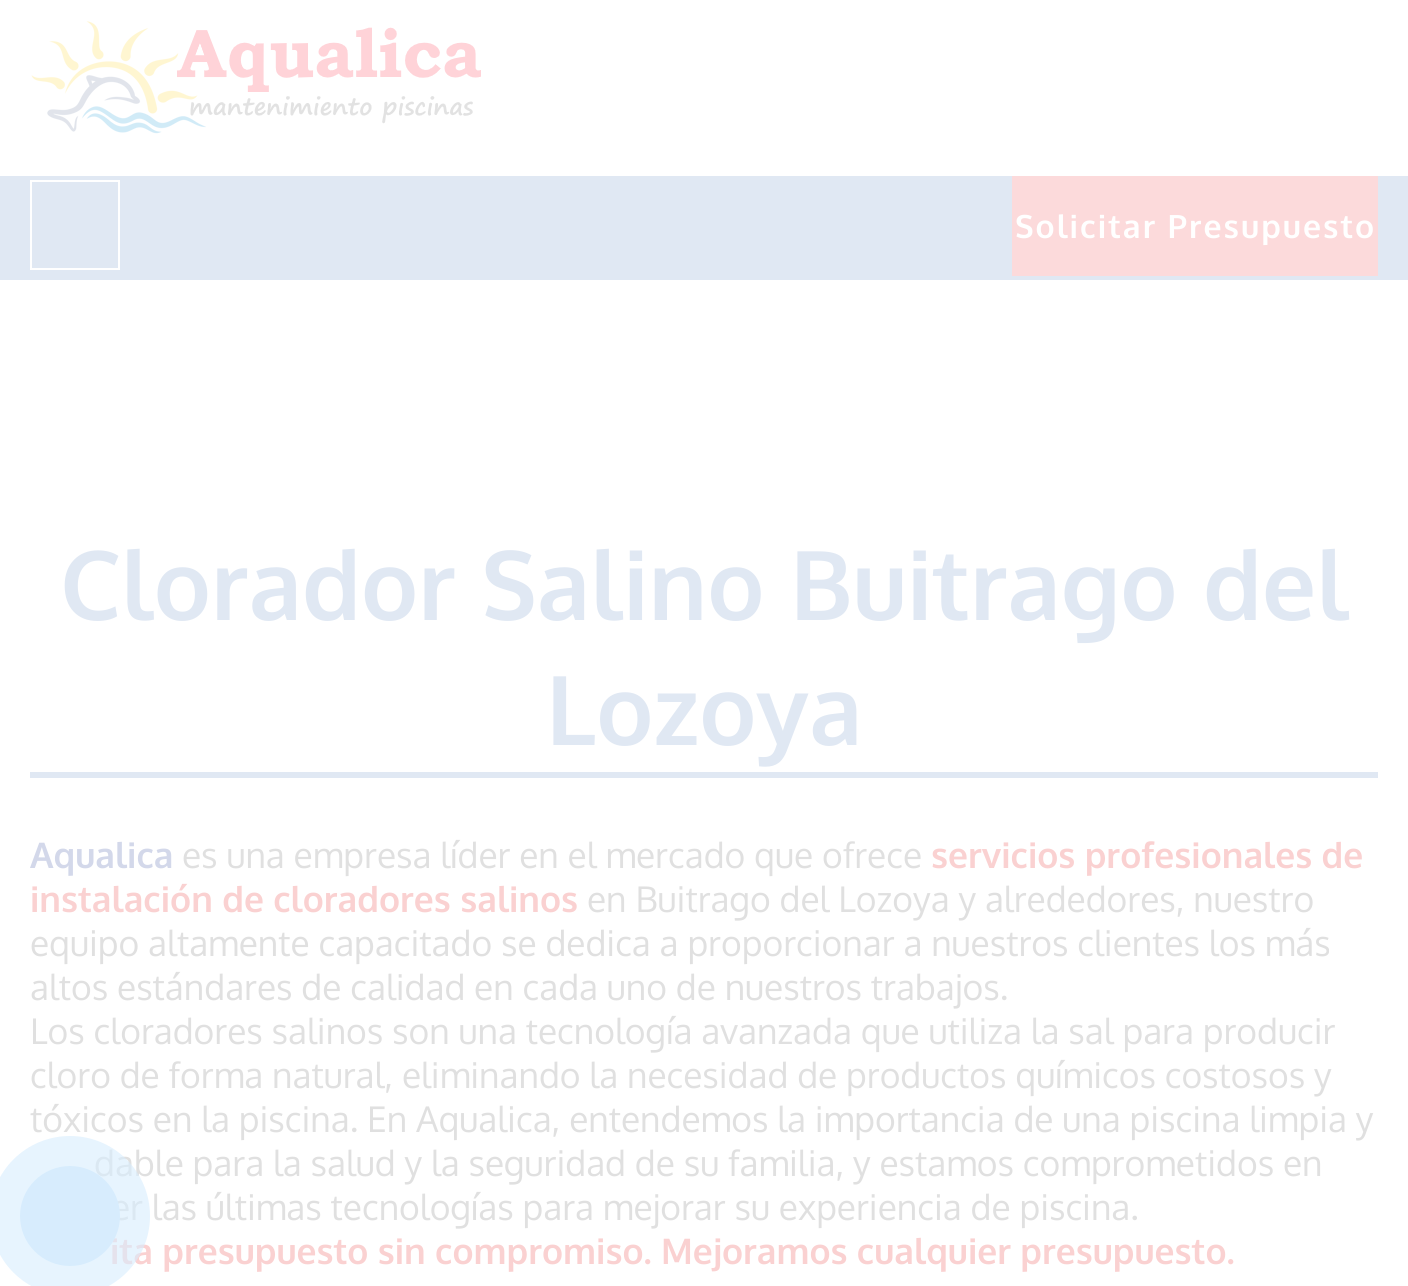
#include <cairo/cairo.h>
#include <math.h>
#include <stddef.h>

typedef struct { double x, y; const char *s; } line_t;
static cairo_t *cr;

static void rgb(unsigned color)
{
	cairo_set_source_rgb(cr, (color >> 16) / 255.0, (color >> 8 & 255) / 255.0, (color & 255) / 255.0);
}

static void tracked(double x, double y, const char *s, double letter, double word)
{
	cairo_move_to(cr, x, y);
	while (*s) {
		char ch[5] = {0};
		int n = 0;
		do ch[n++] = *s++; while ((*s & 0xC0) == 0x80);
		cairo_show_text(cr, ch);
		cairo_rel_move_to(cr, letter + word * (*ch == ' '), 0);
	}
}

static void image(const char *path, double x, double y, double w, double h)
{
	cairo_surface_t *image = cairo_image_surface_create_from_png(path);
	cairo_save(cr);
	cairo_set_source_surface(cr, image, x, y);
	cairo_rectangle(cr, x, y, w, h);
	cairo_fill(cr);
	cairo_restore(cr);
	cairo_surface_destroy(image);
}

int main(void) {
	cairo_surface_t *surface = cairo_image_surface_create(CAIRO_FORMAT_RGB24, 1408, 1286);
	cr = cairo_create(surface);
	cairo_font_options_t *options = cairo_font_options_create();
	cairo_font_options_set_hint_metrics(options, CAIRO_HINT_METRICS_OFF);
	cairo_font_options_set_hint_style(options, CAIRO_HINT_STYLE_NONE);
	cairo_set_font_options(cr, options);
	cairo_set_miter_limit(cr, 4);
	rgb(0xffffff);
	cairo_paint(cr);
	image("img/1.png", 31, 21, 450, 113);
	rgb(0xe0e8f3);
	cairo_rectangle(cr, 0, 176, 1408, 104);
	cairo_fill(cr);
	cairo_rectangle(cr, 31, 181, 88, 88);
	rgb(0xffffff);
	cairo_stroke(cr);
	rgb(0xfcdadb);
	cairo_rectangle(cr, 1012, 176, 366, 100);
	cairo_fill(cr);
	rgb(0xe0e8f3);
	cairo_rectangle(cr, 30, 772, 1348, 6);
	cairo_fill(cr);
	cairo_select_font_face(cr, "Oxygen", CAIRO_FONT_SLANT_NORMAL, CAIRO_FONT_WEIGHT_BOLD);
	cairo_set_font_size(cr, 32);
	rgb(0xffffff);
	tracked(1015, 238, "Solicitar Presupuesto", 2, 0);
	cairo_set_font_size(cr, 96);
	rgb(0xe0e8f3);
	cairo_move_to(cr, 60, 620);
	cairo_show_text(cr, "Clorador Salino Buitrago del");
	cairo_move_to(cr, 546, 745);
	cairo_show_text(cr, "Lozoya");
	cairo_set_font_size(cr, 35.35);
	rgb(0xd3d8ea);
	cairo_move_to(cr, 30, 868);
	cairo_show_text(cr, "Aqualica");
	cairo_select_font_face(cr, "Oxygen", CAIRO_FONT_SLANT_NORMAL, CAIRO_FONT_WEIGHT_NORMAL);
	rgb(0xe0e0e0);
	cairo_move_to(cr, 182, 868);
	cairo_show_text(cr, "es una empresa líder en el mercado que ofrece");
	cairo_select_font_face(cr, "Oxygen", CAIRO_FONT_SLANT_NORMAL, CAIRO_FONT_WEIGHT_BOLD);
	rgb(0xfad1d1);
	cairo_move_to(cr, 931, 868);
	cairo_show_text(cr, "servicios profesionales de");
	cairo_move_to(cr, 30, 912);
	cairo_show_text(cr, "instalación de cloradores salinos");
	cairo_select_font_face(cr, "Oxygen", CAIRO_FONT_SLANT_NORMAL, CAIRO_FONT_WEIGHT_NORMAL);
	rgb(0xe0e0e0);
	{
		static const line_t items[] = {
			{587, 912, "en Buitrago del Lozoya y alrededores, nuestro"},
			{30, 956, "equipo altamente capacitado se dedica a proporcionar a nuestros clientes los más"},
			{30, 1000, "altos estándares de calidad en cada uno de nuestros trabajos."},
			{30, 1044, "Los cloradores salinos son una tecnología avanzada que utiliza la sal para producir"},
			{30, 1088, "cloro de forma natural, eliminando la necesidad de productos químicos costosos y"},
			{30, 1132, "tóxicos en la piscina. En Aqualica, entendemos la importancia de una piscina limpia y"},
			{94, 1176, "dable para la salud y la seguridad de su familia, y estamos comprometidos en"},
			{111, 1220, "er las últimas tecnologías para mejorar su experiencia de piscina."},
		};
		for (size_t i = 0; i < sizeof items / sizeof *items; i++) {
			cairo_move_to(cr, items[i].x, items[i].y);
			cairo_show_text(cr, items[i].s);
		}
	}
	cairo_select_font_face(cr, "Oxygen", CAIRO_FONT_SLANT_NORMAL, CAIRO_FONT_WEIGHT_BOLD);
	rgb(0xfad1d1);
	cairo_move_to(cr, 110, 1264);
	cairo_show_text(cr, "ita presupuesto sin compromiso. Mejoramos cualquier presupuesto.");
	rgb(0xd7ecfd);
	cairo_new_path(cr);
	cairo_arc(cr, 70, 1216, 50, 0, 2 * M_PI);
	cairo_fill(cr);
	cairo_set_source_rgba(cr, 0.843, 0.925, 0.992, 0.6);
	cairo_arc(cr, 70, 1216, 80, 0, 2 * M_PI);
	cairo_fill(cr);
	cairo_surface_write_to_png(surface, "page.png");
	cairo_font_options_destroy(options);
	cairo_destroy(cr);
	cairo_surface_destroy(surface);
	return 0;
}
